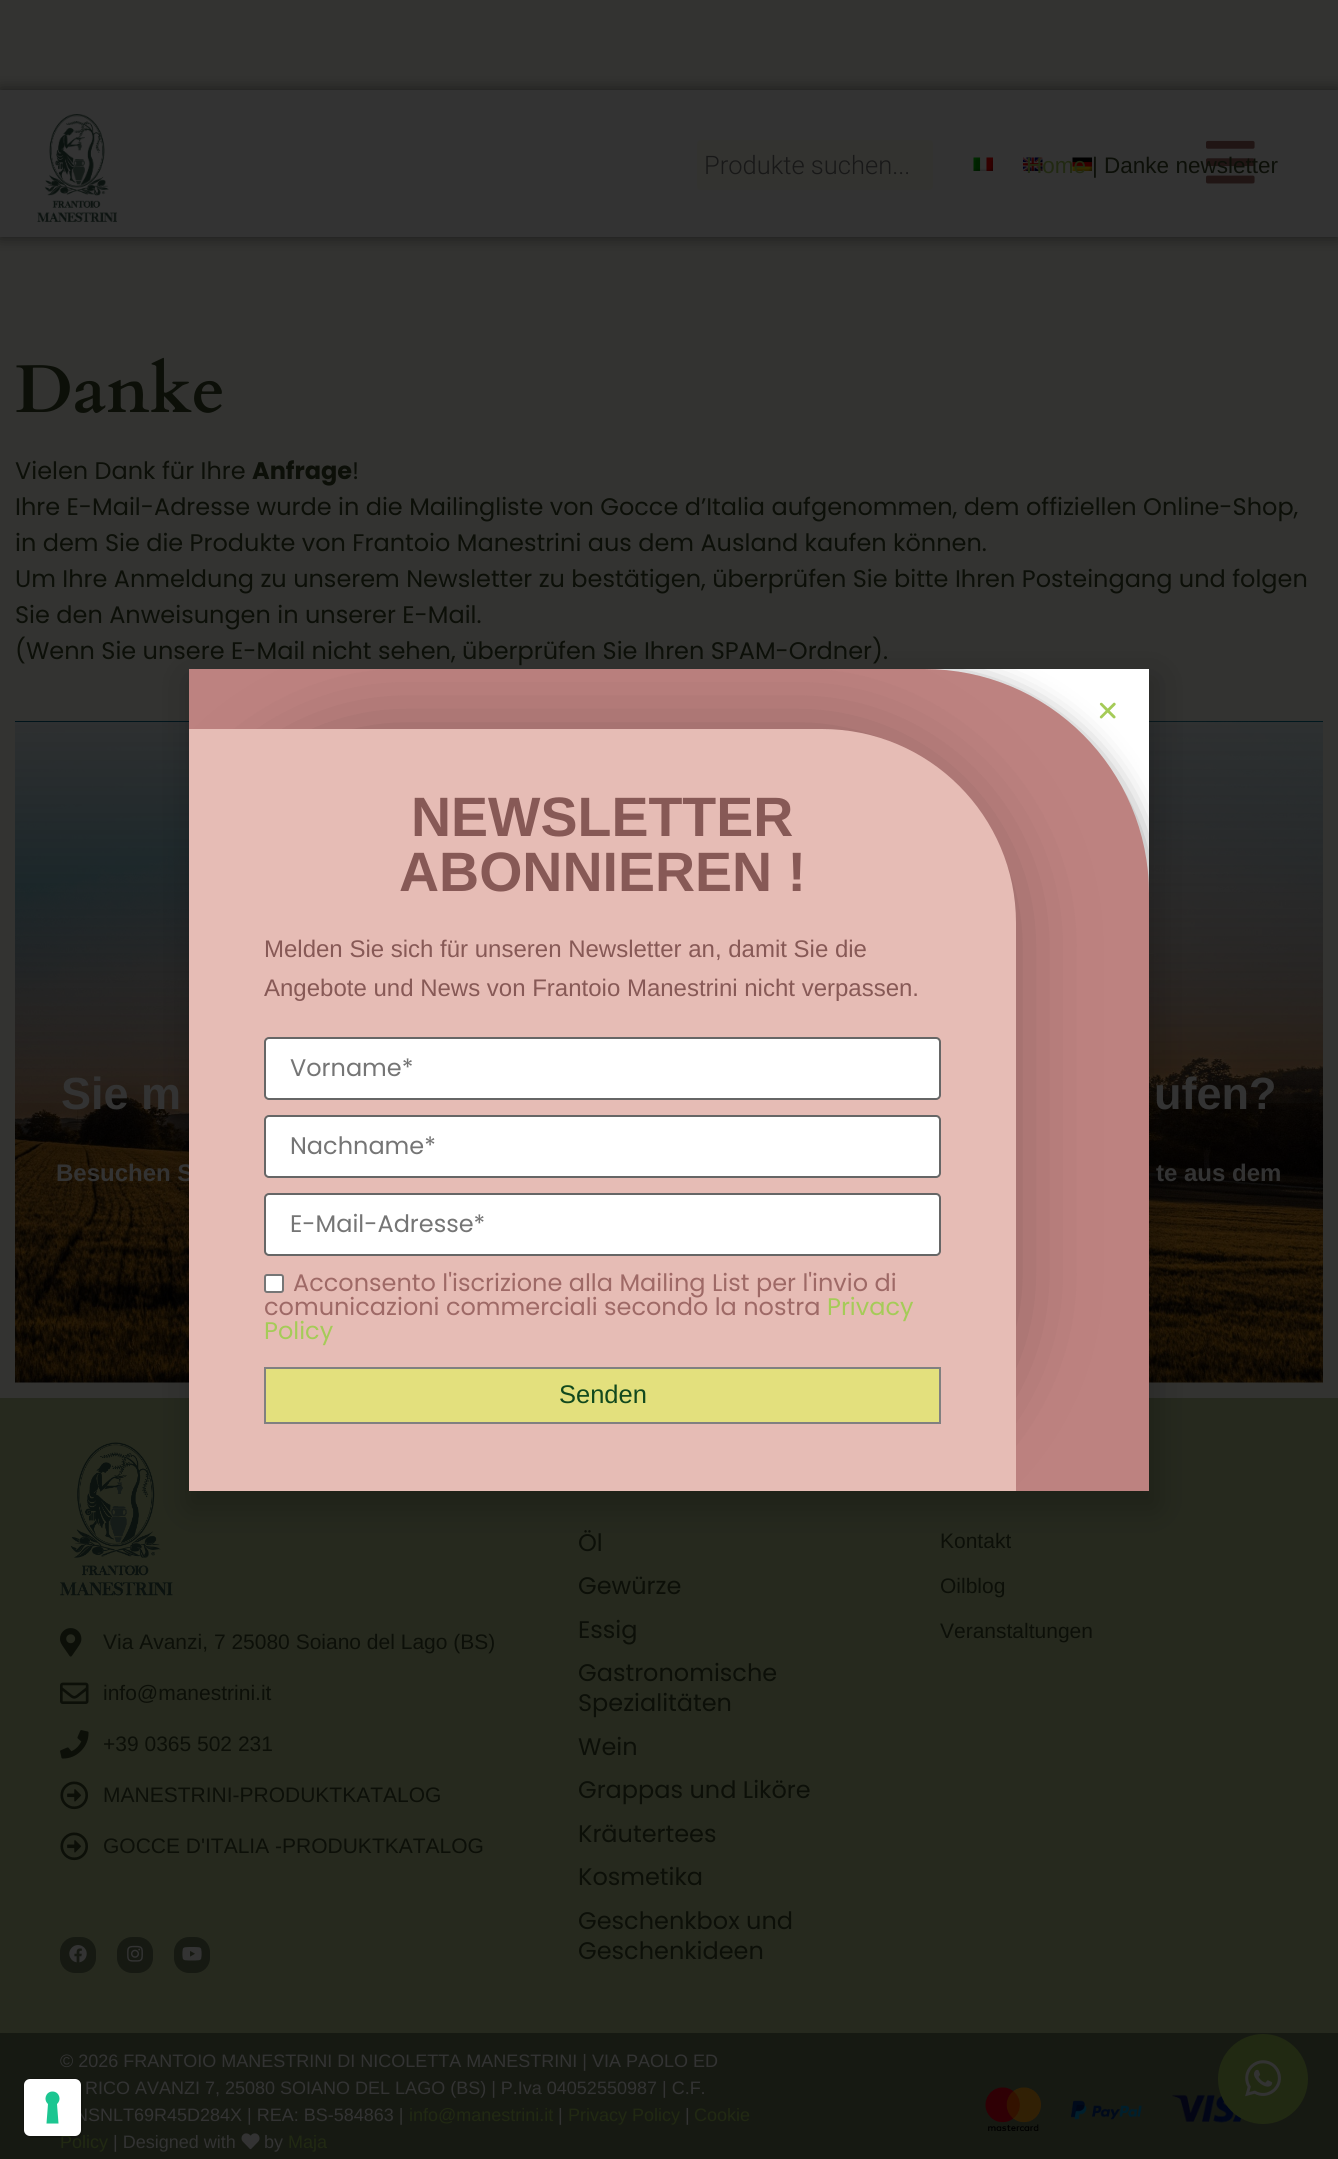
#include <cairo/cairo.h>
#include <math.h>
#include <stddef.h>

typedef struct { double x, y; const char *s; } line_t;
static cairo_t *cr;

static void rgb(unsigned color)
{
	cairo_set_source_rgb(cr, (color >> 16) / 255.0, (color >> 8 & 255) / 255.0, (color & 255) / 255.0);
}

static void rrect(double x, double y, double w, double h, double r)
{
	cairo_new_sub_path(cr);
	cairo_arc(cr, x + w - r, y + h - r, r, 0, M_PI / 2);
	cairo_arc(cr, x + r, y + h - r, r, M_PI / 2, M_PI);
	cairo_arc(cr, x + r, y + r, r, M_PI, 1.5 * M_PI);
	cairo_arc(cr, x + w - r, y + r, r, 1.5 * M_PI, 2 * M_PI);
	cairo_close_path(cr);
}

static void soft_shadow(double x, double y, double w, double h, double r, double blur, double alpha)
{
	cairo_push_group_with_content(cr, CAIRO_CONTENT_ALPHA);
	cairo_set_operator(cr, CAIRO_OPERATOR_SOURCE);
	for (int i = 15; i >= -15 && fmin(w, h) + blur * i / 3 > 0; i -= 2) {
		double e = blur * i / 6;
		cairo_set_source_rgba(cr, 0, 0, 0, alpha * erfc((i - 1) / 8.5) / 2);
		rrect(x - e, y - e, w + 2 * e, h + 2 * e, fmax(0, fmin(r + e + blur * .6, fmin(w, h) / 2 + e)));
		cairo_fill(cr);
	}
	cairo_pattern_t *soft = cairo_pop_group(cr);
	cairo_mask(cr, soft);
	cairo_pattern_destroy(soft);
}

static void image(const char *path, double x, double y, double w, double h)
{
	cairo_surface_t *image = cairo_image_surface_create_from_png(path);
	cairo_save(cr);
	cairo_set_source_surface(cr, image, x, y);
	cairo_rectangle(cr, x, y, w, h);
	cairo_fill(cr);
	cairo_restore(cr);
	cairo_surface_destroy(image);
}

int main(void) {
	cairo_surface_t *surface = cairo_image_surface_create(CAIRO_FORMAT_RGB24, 1338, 2159);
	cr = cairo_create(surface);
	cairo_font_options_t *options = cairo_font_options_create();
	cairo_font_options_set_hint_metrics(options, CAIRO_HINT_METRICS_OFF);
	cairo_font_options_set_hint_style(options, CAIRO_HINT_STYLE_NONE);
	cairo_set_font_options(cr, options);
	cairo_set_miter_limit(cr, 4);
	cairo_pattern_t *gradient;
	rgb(0x333331);
	cairo_paint(cr);
	rgb(0x000000);
	soft_shadow(0, 90, 1338, 147, 0, 7.5, 0.5);
	rgb(0x333333);
	cairo_rectangle(cr, 0, 90, 1338, 147);
	cairo_fill(cr);
	image("img/1.png", 37, 114, 80, 108);
	rgb(0x333330);
	rrect(696, 139, 238, 52, 5);
	cairo_fill_preserve(cr);
	rgb(0x333333);
	cairo_stroke(cr);
	image("img/2.png", 973, 157, 20, 14);
	image("img/3.png", 1023, 157, 20, 14);
	image("img/4.png", 1072, 157, 20, 14);
	image("img/5.png", 1206, 140, 49, 44);
	image("img/6.png", 15, 721, 1308, 662);
	gradient = cairo_pattern_create_linear(669, 721, 669, 1383);
	cairo_pattern_add_color_stop_rgba(gradient, 0, 0.2, 0.2, 0.2, 0.9);
	cairo_pattern_add_color_stop_rgba(gradient, 0.61, 0.2, 0.2, 0.2, 0);
	cairo_set_source(cr, gradient);
	cairo_pattern_destroy(gradient);
	cairo_rectangle(cr, 15, 722, 1308, 381);
	cairo_fill(cr);
	rgb(0x26291e);
	cairo_rectangle(cr, 0, 1398, 1338, 635);
	cairo_fill(cr);
	image("img/7.png", 60, 1442, 113, 154);
	image("img/8.png", 60, 1628, 22, 29);
	image("img/9.png", 60, 1682, 29, 22);
	image("img/10.png", 60, 1730, 29, 29);
	image("img/11.png", 60, 1781, 28, 29);
	image("img/11.png", 60, 1832, 28, 29);
	rgb(0x161912);
	rrect(60, 1937, 36, 36, 15);
	cairo_fill(cr);
	image("img/12.png", 69, 1945, 18, 18);
	rrect(117, 1937, 36, 36, 15);
	cairo_fill(cr);
	image("img/13.png", 127, 1945, 16, 17);
	rrect(174, 1937, 36, 36, 15);
	cairo_fill(cr);
	image("img/14.png", 182, 1947, 20, 14);
	cairo_rectangle(cr, 0, 2033, 1338, 126);
	cairo_fill(cr);
	image("img/15.png", 241, 2133, 19, 17);
	image("img/16.png", 985, 2087, 56, 44);
	image("img/17.png", 1071, 2100, 71, 20);
	image("img/18.png", 1172, 2094, 71, 29);
	rgb(0x212912);
	cairo_arc(cr, 1263, 2079, 45, 0, 2 * M_PI);
	cairo_fill(cr);
	image("img/19.png", 1245, 2060, 36, 37);
	rgb(0x000000);
	soft_shadow(188, 677, 969, 831, 0, 17, 0.2);
	rgb(0xffffff);
	cairo_rectangle(cr, 925, 669, 224, 225);
	cairo_fill(cr);
	cairo_save(cr);
	cairo_rectangle(cr, 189, 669, 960, 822);
	cairo_clip(cr);
	rgb(0x000000);
	soft_shadow(189, 677, 960, 822, 225, 15, 0.5);
	cairo_restore(cr);
	cairo_select_font_face(cr, "Roboto Light", CAIRO_FONT_SLANT_NORMAL, CAIRO_FONT_WEIGHT_NORMAL);
	cairo_set_font_size(cr, 25.5);
	rgb(0x181818);
	cairo_move_to(cr, 704, 174);
	cairo_show_text(cr, "Produkte suchen...");
	cairo_select_font_face(cr, "Liberation Sans", CAIRO_FONT_SLANT_NORMAL, CAIRO_FONT_WEIGHT_NORMAL);
	cairo_set_font_size(cr, 22.5);
	rgb(0x212912);
	cairo_move_to(cr, 1026, 173);
	cairo_show_text(cr, "Home");
	rgb(0x0c0f08);
	cairo_move_to(cr, 1092, 173);
	cairo_show_text(cr, "| Danke newsletter");
	cairo_select_font_face(cr, "Cardo", CAIRO_FONT_SLANT_NORMAL, CAIRO_FONT_WEIGHT_BOLD);
	cairo_set_font_size(cr, 67.5);
	cairo_move_to(cr, 15, 412);
	cairo_show_text(cr, "Danke");
	cairo_select_font_face(cr, "Poppins", CAIRO_FONT_SLANT_NORMAL, CAIRO_FONT_WEIGHT_NORMAL);
	cairo_set_font_size(cr, 24);
	cairo_move_to(cr, 15, 479);
	cairo_show_text(cr, "Vielen Dank für Ihre");
	cairo_select_font_face(cr, "Poppins", CAIRO_FONT_SLANT_NORMAL, CAIRO_FONT_WEIGHT_BOLD);
	cairo_move_to(cr, 252, 479);
	cairo_show_text(cr, "Anfrage");
	cairo_select_font_face(cr, "Poppins", CAIRO_FONT_SLANT_NORMAL, CAIRO_FONT_WEIGHT_NORMAL);
	{
		static const line_t items[] = {
			{352, 479, "!"},
			{15, 515, "Ihre E-Mail-Adresse wurde in die Mailingliste von Gocce d’Italia aufgenommen, dem offiziellen Online-Shop,"},
			{15, 551, "in dem Sie die Produkte von Frantoio Manestrini aus dem Ausland kaufen können."},
			{15, 587, "Um Ihre Anmeldung zu unserem Newsletter zu bestätigen, überprüfen Sie bitte Ihren Posteingang und folgen"},
			{15, 623, "Sie den Anweisungen in unserer E-Mail."},
			{15, 659, "(Wenn Sie unsere E-Mail nicht sehen, überprüfen Sie Ihren SPAM-Ordner)."},
		};
		for (size_t i = 0; i < sizeof items / sizeof *items; i++) {
			cairo_move_to(cr, items[i].x, items[i].y);
			cairo_show_text(cr, items[i].s);
		}
	}
	cairo_select_font_face(cr, "Liberation Sans", CAIRO_FONT_SLANT_NORMAL, CAIRO_FONT_WEIGHT_BOLD);
	cairo_set_font_size(cr, 45);
	rgb(0x333333);
	cairo_move_to(cr, 61, 1109);
	cairo_show_text(cr, "Sie m");
	cairo_move_to(cr, 1154, 1109);
	cairo_show_text(cr, "ufen?");
	cairo_set_font_size(cr, 24);
	cairo_move_to(cr, 56, 1181);
	cairo_show_text(cr, "Besuchen S");
	cairo_move_to(cr, 1156, 1181);
	cairo_show_text(cr, "te aus dem");
	cairo_select_font_face(cr, "Poppins", CAIRO_FONT_SLANT_NORMAL, CAIRO_FONT_WEIGHT_NORMAL);
	rgb(0x0c0f08);
	{
		static const line_t items[] = {
			{578, 1551, "Öl"},
			{578, 1594, "Gewürze"},
			{578, 1638, "Essig"},
			{578, 1681, "Gastronomische"},
			{578, 1711, "Spezialitäten"},
			{578, 1755, "Wein"},
			{578, 1798, "Grappas und Liköre"},
			{578, 1842, "Kräutertees"},
			{578, 1885, "Kosmetika"},
			{578, 1929, "Geschenkbox und"},
			{578, 1959, "Geschenkideen"},
		};
		for (size_t i = 0; i < sizeof items / sizeof *items; i++) {
			cairo_move_to(cr, items[i].x, items[i].y);
			cairo_show_text(cr, items[i].s);
		}
	}
	cairo_select_font_face(cr, "Liberation Sans", CAIRO_FONT_SLANT_NORMAL, CAIRO_FONT_WEIGHT_NORMAL);
	cairo_set_font_size(cr, 21);
	{
		static const line_t items[] = {
			{940, 1548, "Kontakt"},
			{940, 1593, "Oilblog"},
			{940, 1638, "Veranstaltungen"},
			{103, 1649, "Via Avanzi, 7 25080 Soiano del Lago (BS)"},
			{103, 1700, "info@manestrini.it"},
			{103, 1751, "+39 0365 502 231"},
			{103, 1802, "MANESTRINI-PRODUKTKATALOG"},
			{103, 1853, "GOCCE D'ITALIA -PRODUKTKATALOG"},
		};
		for (size_t i = 0; i < sizeof items / sizeof *items; i++) {
			cairo_move_to(cr, items[i].x, items[i].y);
			cairo_show_text(cr, items[i].s);
		}
	}
	cairo_set_font_size(cr, 18);
	rgb(0x333333);
	{
		static const line_t items[] = {
			{60, 2067, "© 2026 FRANTOIO MANESTRINI DI NICOLETTA MANESTRINI | VIA PAOLO ED"},
			{85, 2094, "RICO AVANZI 7, 25080 SOIANO DEL LAGO (BS) | P.Iva 04052550987 | C.F."},
			{75, 2121, "NSNLT69R45D284X | REA: BS-584863 |"},
		};
		for (size_t i = 0; i < sizeof items / sizeof *items; i++) {
			cairo_move_to(cr, items[i].x, items[i].y);
			cairo_show_text(cr, items[i].s);
		}
	}
	rgb(0x212912);
	cairo_move_to(cr, 409, 2121);
	cairo_show_text(cr, "info@manestrini.it");
	rgb(0x333333);
	cairo_move_to(cr, 558, 2121);
	cairo_show_text(cr, "|");
	rgb(0x212912);
	cairo_move_to(cr, 568, 2121);
	cairo_show_text(cr, "Privacy Policy");
	rgb(0x333333);
	cairo_move_to(cr, 685, 2121);
	cairo_show_text(cr, "|");
	rgb(0x212912);
	cairo_move_to(cr, 694, 2121);
	cairo_show_text(cr, "Cookie");
	cairo_move_to(cr, 60, 2148);
	cairo_show_text(cr, "Policy");
	rgb(0x333333);
	cairo_move_to(cr, 113, 2148);
	cairo_show_text(cr, "| Designed with");
	cairo_move_to(cr, 264, 2148);
	cairo_show_text(cr, "by");
	rgb(0x212912);
	cairo_move_to(cr, 288, 2148);
	cairo_show_text(cr, "Maja");
	rgb(0xbd8280);
	cairo_new_path(cr);
	cairo_move_to(cr, 189, 669);
	cairo_line_to(cr, 924, 669);
	cairo_curve_to(cr, 1048.5, 669, 1149, 769.5, 1149, 894);
	cairo_line_to(cr, 1149, 1491);
	cairo_line_to(cr, 189, 1491);
	cairo_close_path(cr);
	cairo_fill(cr);
	cairo_save(cr);
	cairo_rectangle(cr, 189, 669, 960, 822);
	cairo_clip(cr);
	rgb(0x000000);
	soft_shadow(189, 729, 827, 762, 194, 40.5, 0.24);
	cairo_restore(cr);
	image("img/20.png", 1099, 702, 17, 17);
	rgb(0xe6bcb5);
	cairo_new_path(cr);
	cairo_move_to(cr, 189, 729);
	cairo_line_to(cr, 822, 729);
	cairo_curve_to(cr, 929, 729, 1016, 816, 1016, 923);
	cairo_line_to(cr, 1016, 1491);
	cairo_line_to(cr, 189, 1491);
	cairo_close_path(cr);
	cairo_fill(cr);
	cairo_select_font_face(cr, "Liberation Sans", CAIRO_FONT_SLANT_NORMAL, CAIRO_FONT_WEIGHT_BOLD);
	cairo_set_font_size(cr, 55.5);
	rgb(0x875956);
	cairo_move_to(cr, 411, 836);
	cairo_show_text(cr, "NEWSLETTER");
	cairo_move_to(cr, 399, 891);
	cairo_show_text(cr, "ABONNIEREN !");
	cairo_select_font_face(cr, "Liberation Sans", CAIRO_FONT_SLANT_NORMAL, CAIRO_FONT_WEIGHT_NORMAL);
	cairo_set_font_size(cr, 24);
	cairo_move_to(cr, 264, 957);
	cairo_show_text(cr, "Melden Sie sich für unseren Newsletter an, damit Sie die");
	cairo_move_to(cr, 264, 996);
	cairo_show_text(cr, "Angebote und News von Frantoio Manestrini nicht verpassen.");
	rgb(0xffffff);
	rrect(265, 1038, 675, 61, 4);
	cairo_fill_preserve(cr);
	rgb(0x666666);
	cairo_stroke(cr);
	cairo_select_font_face(cr, "Poppins", CAIRO_FONT_SLANT_NORMAL, CAIRO_FONT_WEIGHT_NORMAL);
	rgb(0x757575);
	cairo_move_to(cr, 290, 1076);
	cairo_show_text(cr, "Vorname*");
	rgb(0xffffff);
	rrect(265, 1116, 675, 61, 4);
	cairo_fill_preserve(cr);
	rgb(0x666666);
	cairo_stroke(cr);
	rgb(0x757575);
	cairo_move_to(cr, 290, 1154);
	cairo_show_text(cr, "Nachname*");
	rgb(0xffffff);
	rrect(265, 1194, 675, 61, 4);
	cairo_fill_preserve(cr);
	rgb(0x666666);
	cairo_stroke(cr);
	rgb(0x757575);
	cairo_move_to(cr, 290, 1232);
	cairo_show_text(cr, "E-Mail-Adresse*");
	rgb(0xffffff);
	rrect(265, 1275, 18, 17, 2);
	cairo_fill_preserve(cr);
	rgb(0x767676);
	cairo_stroke(cr);
	rgb(0x9e6966);
	cairo_move_to(cr, 293, 1291);
	cairo_show_text(cr, "Acconsento l'iscrizione alla Mailing List per l'invio di");
	cairo_move_to(cr, 264, 1315);
	cairo_show_text(cr, "comunicazioni commerciali secondo la nostra");
	rgb(0xa5cb58);
	cairo_move_to(cr, 827, 1315);
	cairo_show_text(cr, "Privacy");
	cairo_move_to(cr, 264, 1339);
	cairo_show_text(cr, "Policy");
	rgb(0xe3e07d);
	cairo_rectangle(cr, 265, 1368, 675, 55);
	cairo_fill_preserve(cr);
	rgb(0x808080);
	cairo_stroke(cr);
	cairo_select_font_face(cr, "Liberation Sans", CAIRO_FONT_SLANT_NORMAL, CAIRO_FONT_WEIGHT_NORMAL);
	cairo_set_font_size(cr, 25.5);
	rgb(0x12491d);
	cairo_move_to(cr, 559, 1403);
	cairo_show_text(cr, "Senden");
	rrect(24, 2079, 58, 58, 7);
	cairo_set_source_rgba(cr, 0, 0, 0, 0.15);
	cairo_stroke(cr);
	rgb(0xffffff);
	rrect(24, 2079, 57, 57, 6);
	cairo_fill(cr);
	rgb(0x1cc691);
	cairo_set_fill_rule(cr, CAIRO_FILL_RULE_EVEN_ODD);
	cairo_new_path(cr);
	cairo_move_to(cr, 52.5, 2091.5);
	cairo_curve_to(cr, 59, 2091.5, 62, 2099.5, 57, 2104);
	cairo_line_to(cr, 58.5, 2123.5);
	cairo_line_to(cr, 46.5, 2123.5);
	cairo_line_to(cr, 48, 2104);
	cairo_curve_to(cr, 43, 2099.5, 46, 2091.5, 52.5, 2091.5);
	cairo_close_path(cr);
	cairo_fill(cr);
	cairo_surface_write_to_png(surface, "page.png");
	cairo_font_options_destroy(options);
	cairo_destroy(cr);
	cairo_surface_destroy(surface);
	return 0;
}
